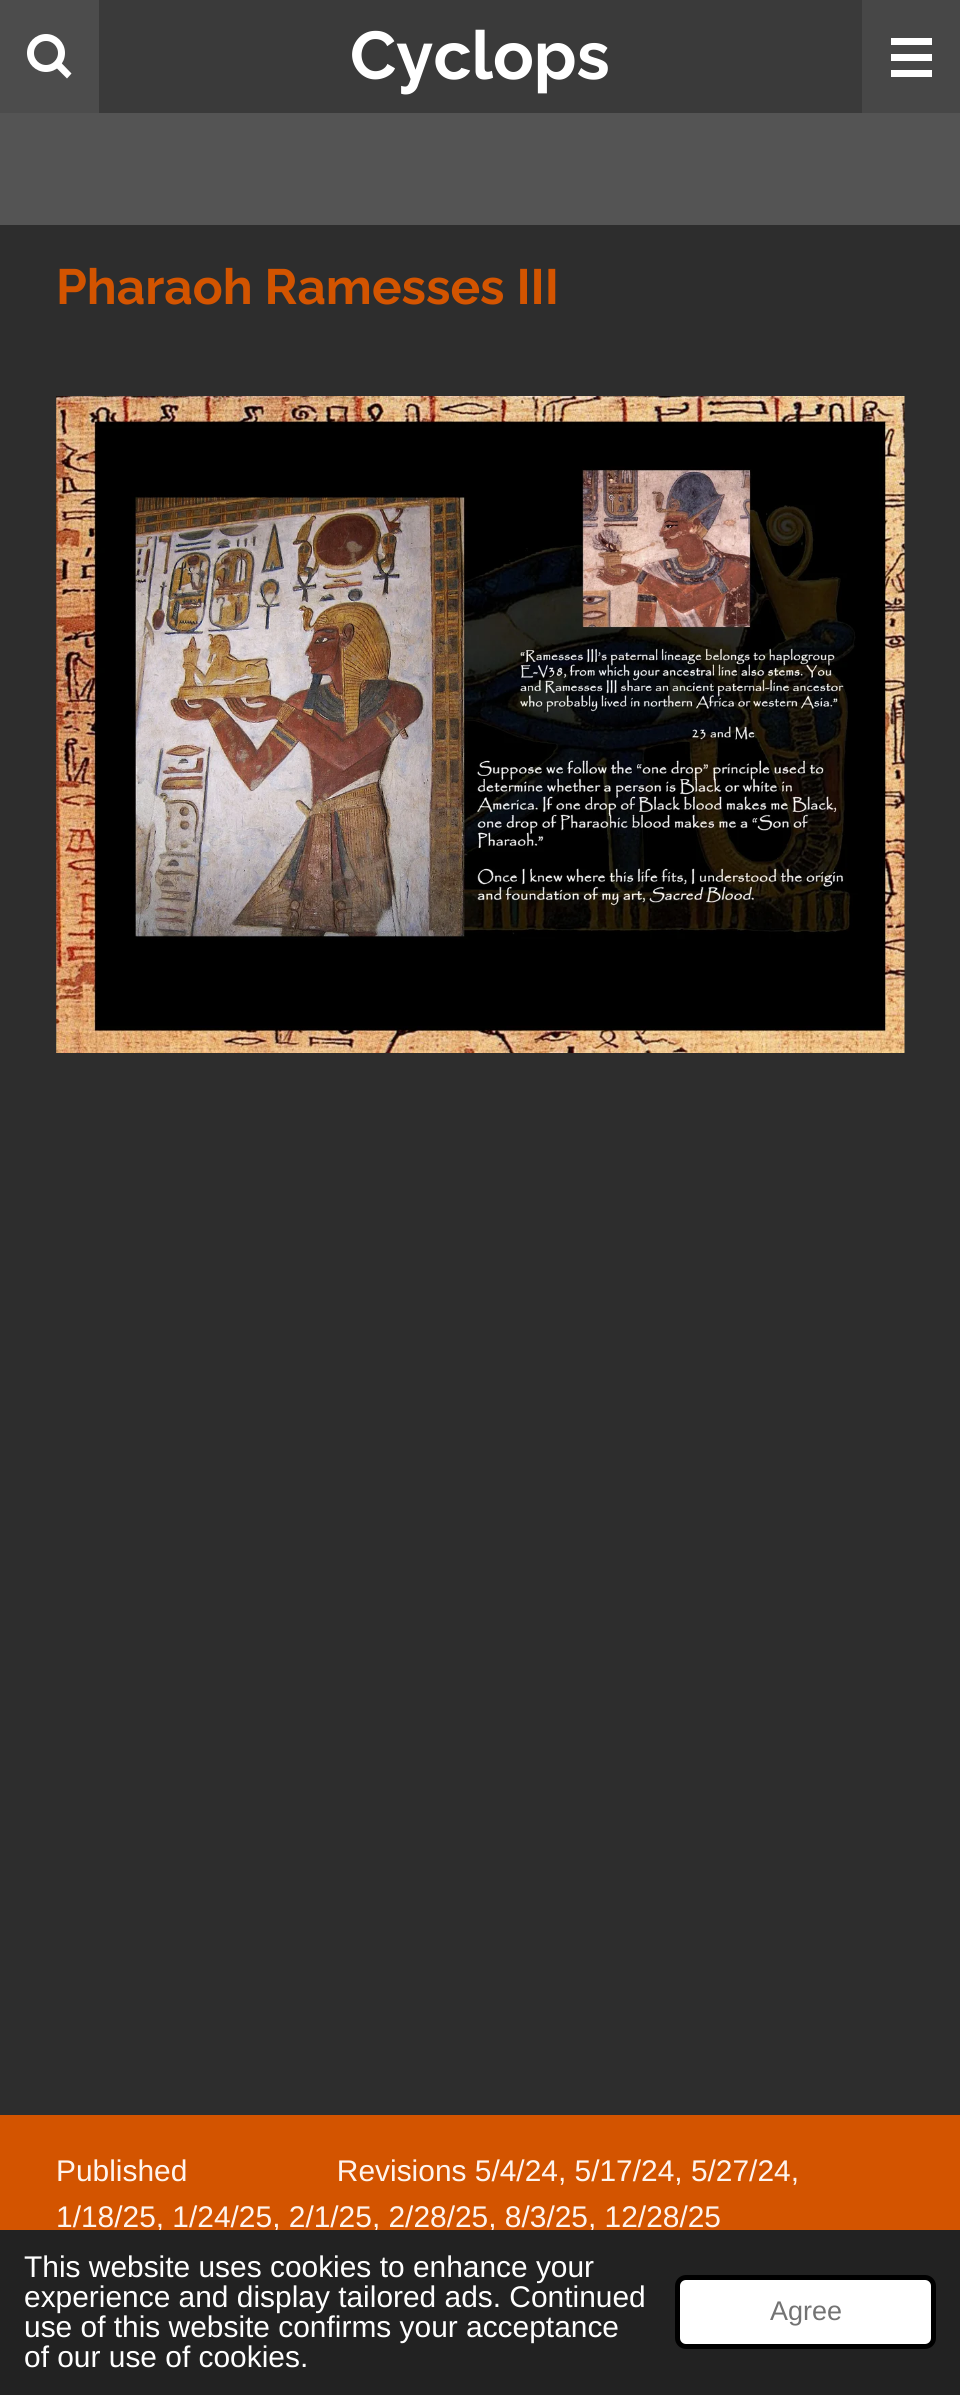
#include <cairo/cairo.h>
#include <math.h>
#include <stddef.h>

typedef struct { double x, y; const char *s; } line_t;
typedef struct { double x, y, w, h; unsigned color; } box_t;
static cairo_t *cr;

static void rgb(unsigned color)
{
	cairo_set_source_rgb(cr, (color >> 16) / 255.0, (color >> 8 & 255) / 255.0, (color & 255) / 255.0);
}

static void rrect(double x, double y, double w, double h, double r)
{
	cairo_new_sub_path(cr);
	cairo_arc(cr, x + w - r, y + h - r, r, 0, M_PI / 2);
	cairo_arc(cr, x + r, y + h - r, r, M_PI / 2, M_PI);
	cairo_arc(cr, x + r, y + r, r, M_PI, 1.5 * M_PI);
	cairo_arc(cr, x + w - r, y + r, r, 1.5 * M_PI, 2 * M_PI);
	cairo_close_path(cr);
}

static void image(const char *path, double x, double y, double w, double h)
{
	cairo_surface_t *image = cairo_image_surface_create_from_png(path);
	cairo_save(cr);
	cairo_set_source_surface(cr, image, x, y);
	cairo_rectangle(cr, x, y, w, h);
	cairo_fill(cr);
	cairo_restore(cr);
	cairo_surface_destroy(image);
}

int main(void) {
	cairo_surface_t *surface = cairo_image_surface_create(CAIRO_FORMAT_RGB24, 960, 2395);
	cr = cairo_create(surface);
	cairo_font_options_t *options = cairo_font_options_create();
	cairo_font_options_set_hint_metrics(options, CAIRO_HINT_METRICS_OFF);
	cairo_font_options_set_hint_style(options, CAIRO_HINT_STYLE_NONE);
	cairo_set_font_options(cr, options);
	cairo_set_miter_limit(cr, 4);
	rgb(0x3a3a3a);
	cairo_paint(cr);
	rgb(0x4c4c4c);
	cairo_rectangle(cr, 0, 0, 99, 113);
	cairo_fill(cr);
	cairo_arc(cr, 46, 53, 15.5, 0, 2 * M_PI);
	rgb(0xffffff);
	cairo_set_line_width(cr, 7);
	cairo_stroke(cr);
	cairo_new_path(cr);
	cairo_move_to(cr, 57.5, 59);
	cairo_line_to(cr, 71.5, 73.5);
	cairo_line_to(cr, 67, 78.5);
	cairo_line_to(cr, 52.5, 64);
	cairo_close_path(cr);
	cairo_fill(cr);
	{
		static const box_t items[] = {
			{862, 0, 98, 113, 0x474747},
			{891, 54, 41, 7, 0xffffff},
			{891, 38, 41, 7, 0xffffff},
			{891, 70, 41, 7, 0xffffff},
			{0, 113, 960, 112, 0x545454},
			{0, 225, 960, 1890, 0x2d2d2d},
		};
		for (size_t i = 0; i < sizeof items / sizeof *items; i++) {
			rgb(items[i].color);
			cairo_rectangle(cr, items[i].x, items[i].y, items[i].w, items[i].h);
			cairo_fill(cr);
		}
	}
	image("img/1.png", 56, 396, 849, 657);
	rgb(0xd35400);
	cairo_rectangle(cr, 0, 2115, 960, 115);
	cairo_fill(cr);
	cairo_select_font_face(cr, "Raleway", CAIRO_FONT_SLANT_NORMAL, CAIRO_FONT_WEIGHT_BOLD);
	cairo_set_font_size(cr, 67.5);
	rgb(0xffffff);
	cairo_move_to(cr, 350, 79);
	cairo_show_text(cr, "Cyclops");
	cairo_set_font_size(cr, 49.5);
	rgb(0xd35400);
	cairo_move_to(cr, 56, 304);
	cairo_show_text(cr, "Pharaoh Ramesses III");
	cairo_select_font_face(cr, "Liberation Sans", CAIRO_FONT_SLANT_NORMAL, CAIRO_FONT_WEIGHT_NORMAL);
	cairo_set_font_size(cr, 29.9);
	rgb(0xfff4ed);
	cairo_move_to(cr, 56, 2181);
	cairo_show_text(cr, "Published                  Revisions 5/4/24, 5/17/24, 5/27/24,");
	cairo_move_to(cr, 56, 2227);
	cairo_show_text(cr, "1/18/25, 1/24/25, 2/1/25, 2/28/25, 8/3/25, 12/28/25");
	rgb(0x222222);
	cairo_rectangle(cr, 0, 2230, 960, 165);
	cairo_fill(cr);
	rgb(0xffffff);
	{
		static const line_t items[] = {
			{24, 2277, "This website uses cookies to enhance your"},
			{24, 2307, "experience and display tailored ads. Continued"},
			{24, 2337, "use of this website confirms your acceptance"},
			{24, 2367, "of our use of cookies."},
		};
		for (size_t i = 0; i < sizeof items / sizeof *items; i++) {
			cairo_move_to(cr, items[i].x, items[i].y);
			cairo_show_text(cr, items[i].s);
		}
	}
	rrect(677.5, 2277.5, 256, 69, 8.5);
	cairo_fill_preserve(cr);
	rgb(0x000000);
	cairo_set_line_width(cr, 5);
	cairo_stroke(cr);
	cairo_set_font_size(cr, 27);
	rgb(0x737373);
	cairo_move_to(cr, 770, 2320);
	cairo_show_text(cr, "Agree");
	cairo_surface_write_to_png(surface, "page.png");
	cairo_font_options_destroy(options);
	cairo_destroy(cr);
	cairo_surface_destroy(surface);
	return 0;
}
